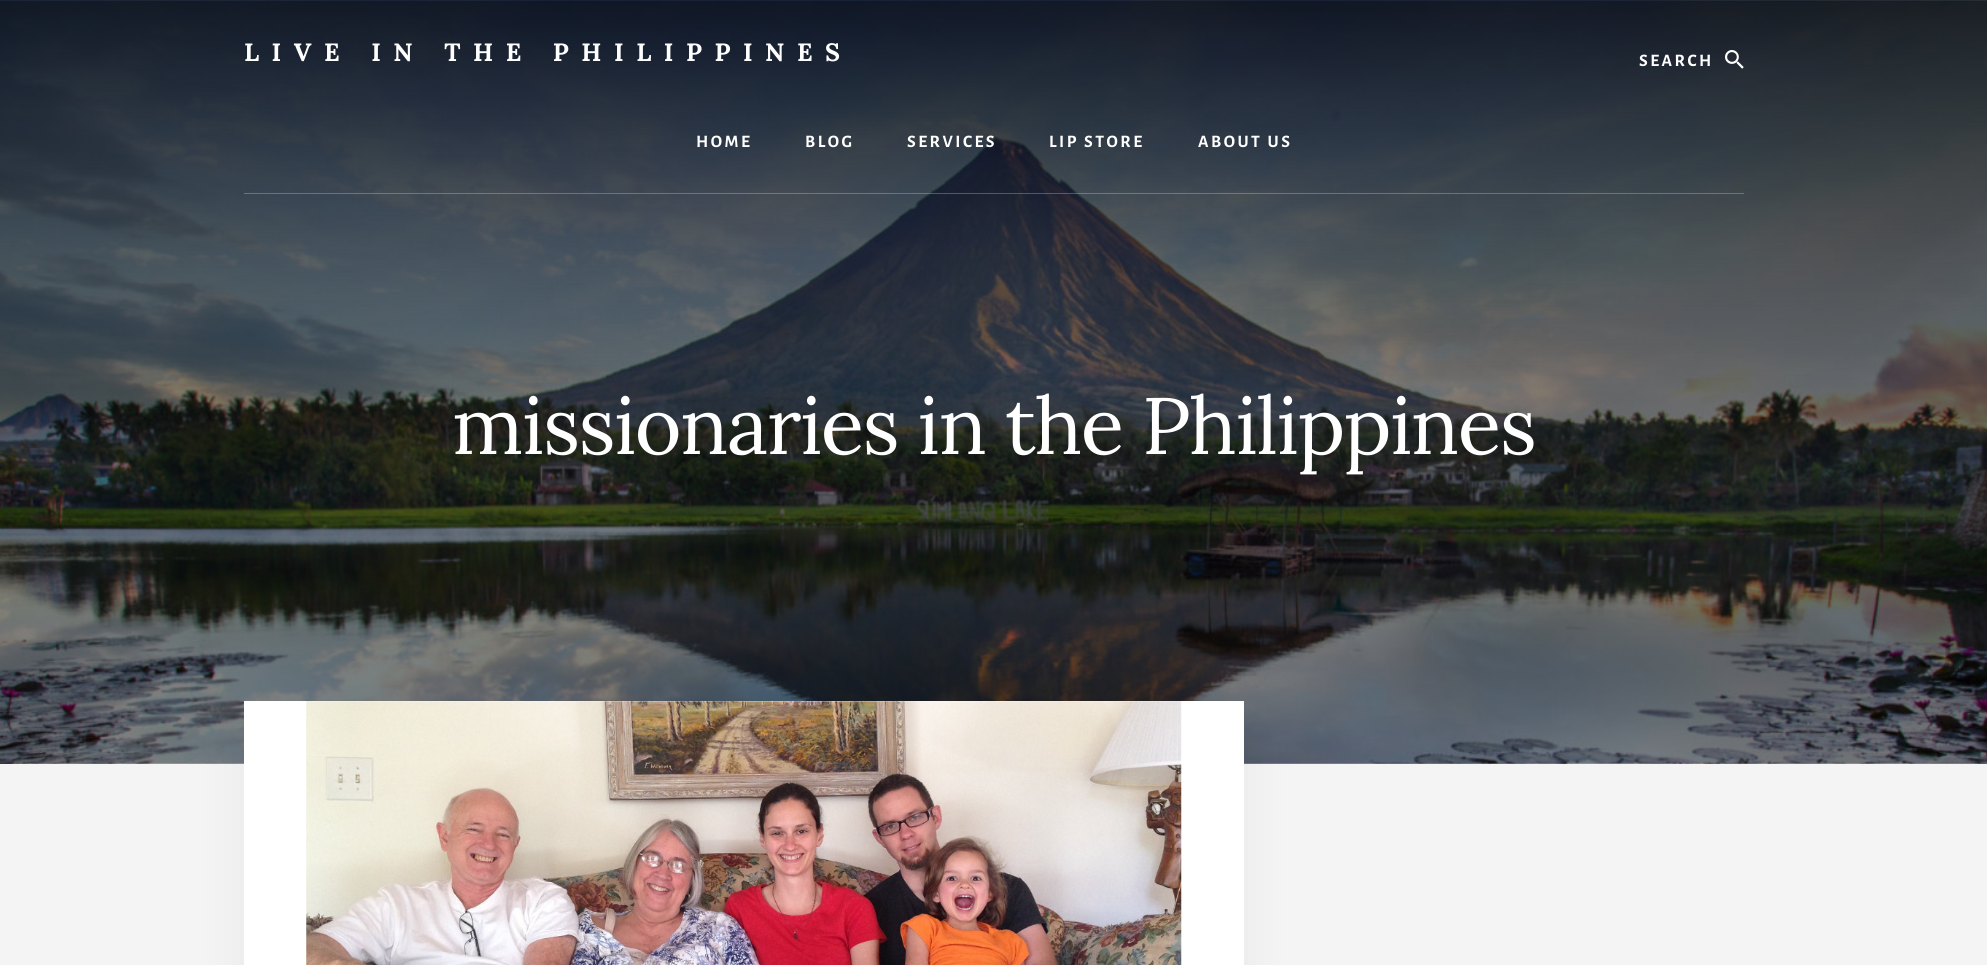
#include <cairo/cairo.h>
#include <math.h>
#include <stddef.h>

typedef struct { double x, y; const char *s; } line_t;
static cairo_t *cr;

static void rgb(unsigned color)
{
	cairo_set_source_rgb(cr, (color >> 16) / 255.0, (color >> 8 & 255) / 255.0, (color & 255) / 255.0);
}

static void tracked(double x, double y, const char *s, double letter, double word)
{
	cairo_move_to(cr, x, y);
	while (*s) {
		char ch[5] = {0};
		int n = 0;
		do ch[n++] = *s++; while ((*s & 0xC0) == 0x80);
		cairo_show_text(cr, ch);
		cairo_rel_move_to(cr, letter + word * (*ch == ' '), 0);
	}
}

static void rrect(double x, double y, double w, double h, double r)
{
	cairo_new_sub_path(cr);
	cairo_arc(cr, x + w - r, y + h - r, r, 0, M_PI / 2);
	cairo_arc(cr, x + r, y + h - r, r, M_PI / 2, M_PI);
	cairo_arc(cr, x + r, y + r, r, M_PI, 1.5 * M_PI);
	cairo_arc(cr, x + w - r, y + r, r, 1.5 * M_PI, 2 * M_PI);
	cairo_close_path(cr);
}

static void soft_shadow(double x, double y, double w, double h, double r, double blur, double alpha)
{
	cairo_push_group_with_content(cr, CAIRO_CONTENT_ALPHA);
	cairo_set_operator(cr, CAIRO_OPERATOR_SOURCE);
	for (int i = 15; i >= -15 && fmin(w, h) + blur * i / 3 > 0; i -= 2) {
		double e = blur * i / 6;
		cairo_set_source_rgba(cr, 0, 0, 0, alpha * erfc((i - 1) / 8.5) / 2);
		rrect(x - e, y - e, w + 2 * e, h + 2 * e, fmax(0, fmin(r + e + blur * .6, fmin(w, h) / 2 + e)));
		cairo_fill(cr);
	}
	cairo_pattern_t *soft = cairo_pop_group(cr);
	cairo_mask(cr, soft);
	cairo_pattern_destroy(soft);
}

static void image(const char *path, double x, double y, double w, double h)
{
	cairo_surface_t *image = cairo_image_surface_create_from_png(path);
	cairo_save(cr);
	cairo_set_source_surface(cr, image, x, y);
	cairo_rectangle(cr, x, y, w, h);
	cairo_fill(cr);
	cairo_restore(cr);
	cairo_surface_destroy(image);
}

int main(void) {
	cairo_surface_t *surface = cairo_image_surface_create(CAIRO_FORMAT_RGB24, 1987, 965);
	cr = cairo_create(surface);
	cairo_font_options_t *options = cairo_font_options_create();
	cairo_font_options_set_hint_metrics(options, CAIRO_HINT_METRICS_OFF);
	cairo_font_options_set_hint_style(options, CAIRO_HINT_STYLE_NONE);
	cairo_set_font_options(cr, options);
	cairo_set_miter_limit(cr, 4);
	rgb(0xf4f4f4);
	cairo_paint(cr);
	image("img/1.png", 0, 0, 1987, 764);
	image("img/2.png", 1725, 50, 19, 19);
	cairo_set_source_rgba(cr, 1, 1, 1, 0.25);
	cairo_rectangle(cr, 244, 193, 1500, 1);
	cairo_fill(cr);
	rgb(0x000000);
	soft_shadow(244, 733, 1000, 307, 0, 25, 0.05);
	rgb(0xffffff);
	cairo_rectangle(cr, 244, 701, 1000, 264);
	cairo_fill(cr);
	image("img/3.png", 306, 701, 876, 264);
	cairo_select_font_face(cr, "Lora", CAIRO_FONT_SLANT_NORMAL, CAIRO_FONT_WEIGHT_BOLD);
	cairo_set_font_size(cr, 25);
	tracked(244, 61, "LIVE IN THE PHILIPPINES", 12.5, 0);
	cairo_select_font_face(cr, "Alegreya Sans", CAIRO_FONT_SLANT_NORMAL, CAIRO_FONT_WEIGHT_BOLD);
	cairo_set_font_size(cr, 17.5);
	{
		static const line_t items[] = {
			{1639, 66, "SEARCH"},
			{696, 147, "HOME"},
			{805, 147, "BLOG"},
			{907, 147, "SERVICES"},
			{1049, 147, "LIP STORE"},
			{1198, 147, "ABOUT US"},
		};
		for (size_t i = 0; i < sizeof items / sizeof *items; i++) {
			tracked(items[i].x, items[i].y, items[i].s, 2.5, 0);
		}
	}
	cairo_select_font_face(cr, "Lora", CAIRO_FONT_SLANT_NORMAL, CAIRO_FONT_WEIGHT_NORMAL);
	cairo_set_font_size(cr, 80);
	tracked(452, 454, "missionaries in the Philippines", -1.55, 0);
	cairo_surface_write_to_png(surface, "page.png");
	cairo_font_options_destroy(options);
	cairo_destroy(cr);
	cairo_surface_destroy(surface);
	return 0;
}
